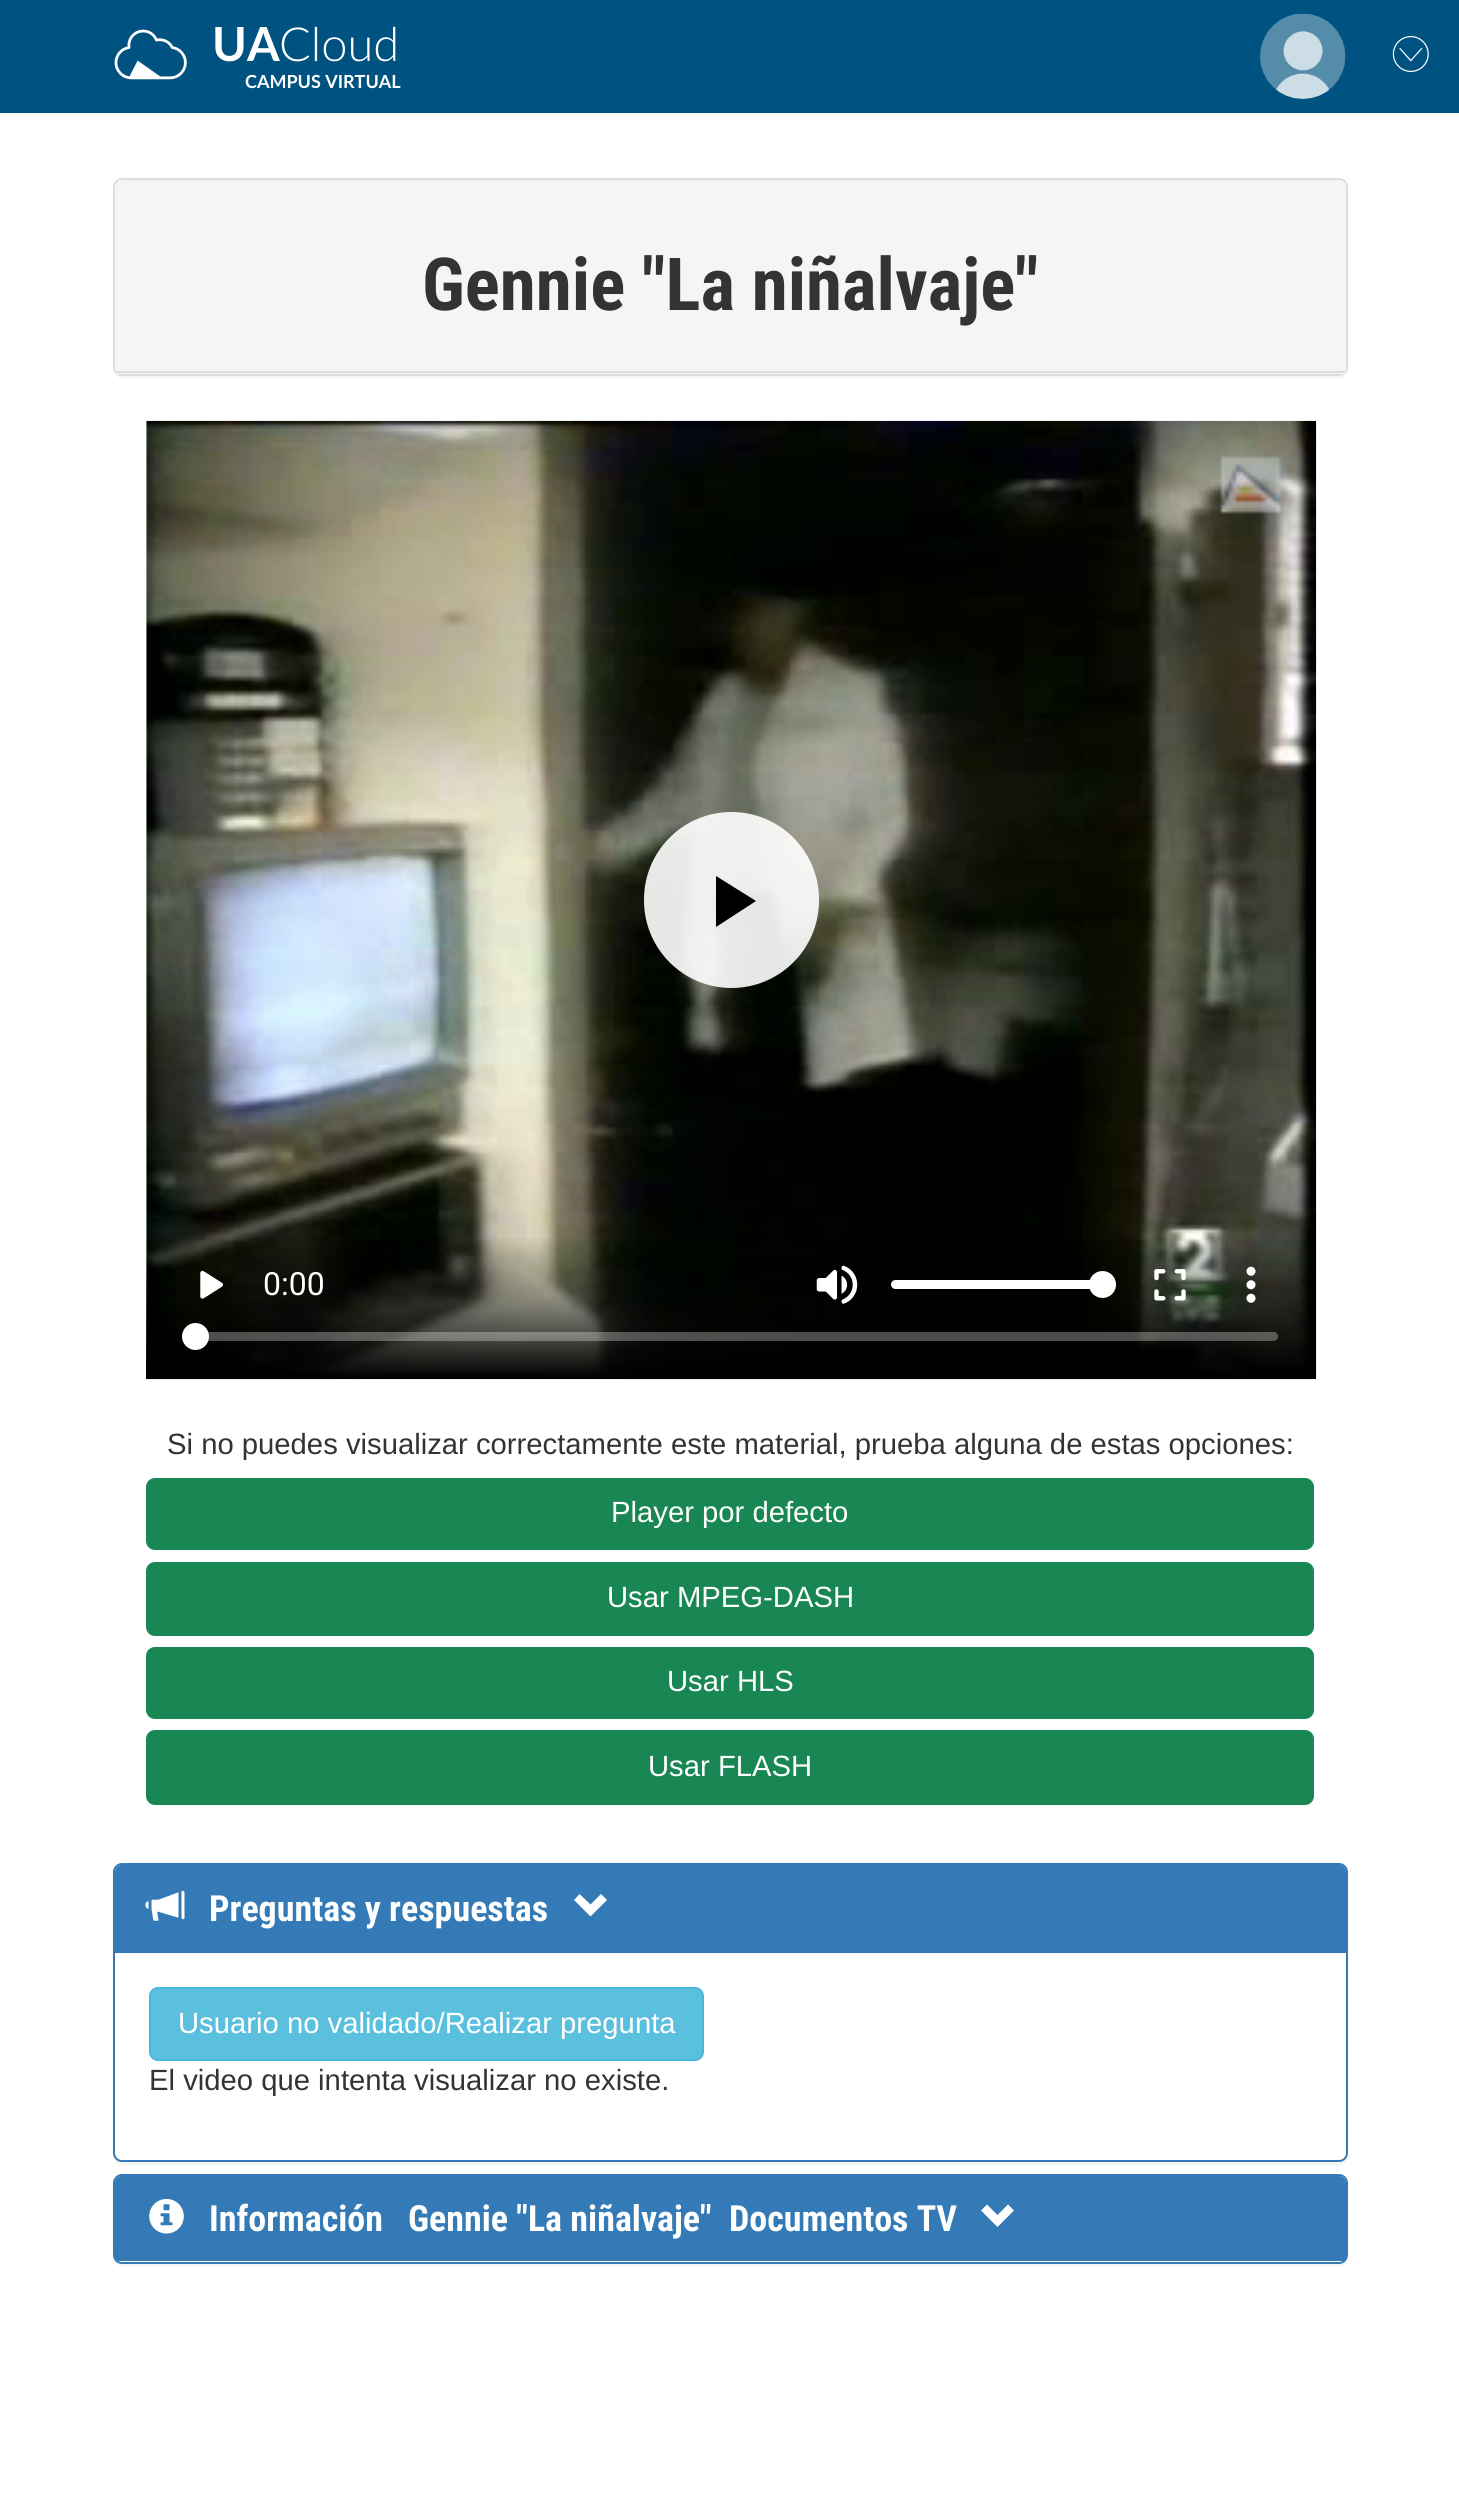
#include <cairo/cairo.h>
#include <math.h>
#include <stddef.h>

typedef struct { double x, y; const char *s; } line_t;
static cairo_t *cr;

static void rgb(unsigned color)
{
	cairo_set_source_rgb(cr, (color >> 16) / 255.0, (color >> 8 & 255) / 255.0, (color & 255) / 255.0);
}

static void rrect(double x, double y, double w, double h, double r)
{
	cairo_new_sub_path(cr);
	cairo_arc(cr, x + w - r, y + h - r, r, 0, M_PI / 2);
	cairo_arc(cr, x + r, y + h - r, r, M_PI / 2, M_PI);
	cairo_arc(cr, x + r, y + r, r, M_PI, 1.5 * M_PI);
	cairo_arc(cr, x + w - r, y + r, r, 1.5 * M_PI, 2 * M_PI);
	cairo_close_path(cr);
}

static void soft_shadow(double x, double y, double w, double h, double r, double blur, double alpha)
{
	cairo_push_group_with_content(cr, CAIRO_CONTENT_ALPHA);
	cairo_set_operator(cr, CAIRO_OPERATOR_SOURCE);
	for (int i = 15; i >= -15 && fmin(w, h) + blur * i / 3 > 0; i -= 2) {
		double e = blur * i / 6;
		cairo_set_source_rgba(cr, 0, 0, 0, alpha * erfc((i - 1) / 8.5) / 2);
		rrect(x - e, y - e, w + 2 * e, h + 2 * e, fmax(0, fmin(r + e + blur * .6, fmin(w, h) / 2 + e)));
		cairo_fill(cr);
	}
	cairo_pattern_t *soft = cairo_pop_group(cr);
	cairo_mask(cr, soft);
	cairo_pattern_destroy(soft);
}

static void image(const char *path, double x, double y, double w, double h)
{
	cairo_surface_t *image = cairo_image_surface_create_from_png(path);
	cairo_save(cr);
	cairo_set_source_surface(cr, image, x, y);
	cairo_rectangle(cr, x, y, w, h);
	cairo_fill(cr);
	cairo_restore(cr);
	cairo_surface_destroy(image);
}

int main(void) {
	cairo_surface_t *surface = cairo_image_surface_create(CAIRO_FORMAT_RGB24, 1459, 2503);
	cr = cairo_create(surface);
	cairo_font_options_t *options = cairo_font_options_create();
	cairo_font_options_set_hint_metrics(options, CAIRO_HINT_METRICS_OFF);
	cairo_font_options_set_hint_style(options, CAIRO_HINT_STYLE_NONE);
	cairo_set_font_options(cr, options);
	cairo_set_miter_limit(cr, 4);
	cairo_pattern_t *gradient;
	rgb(0xffffff);
	cairo_paint(cr);
	rgb(0x000000);
	soft_shadow(113, 1865, 1235, 300, 9, 1, 0.05);
	rgb(0xffffff);
	rrect(114, 1864, 1233, 297, 8);
	cairo_fill_preserve(cr);
	rgb(0x337ab7);
	cairo_stroke(cr);
	cairo_rectangle(cr, 115, 1951, 1231, 2);
	cairo_fill(cr);
	rgb(0x005380);
	cairo_rectangle(cr, 0, 0, 1459, 113);
	cairo_fill(cr);
	image("img/1.png", 114, 29, 73, 51);
	image("img/2.png", 1260, 13, 86, 86);
	image("img/3.png", 1392, 36, 37, 36);
	rgb(0x5bc0de);
	rrect(150, 1988, 553, 72, 8);
	cairo_fill_preserve(cr);
	rgb(0x46b8da);
	cairo_stroke(cr);
	rgb(0x337ab7);
	cairo_new_path(cr);
	cairo_move_to(cr, 122, 1865);
	cairo_line_to(cr, 1339, 1865);
	cairo_curve_to(cr, 1343, 1865, 1346, 1868, 1346, 1872);
	cairo_line_to(cr, 1346, 1951);
	cairo_line_to(cr, 115, 1951);
	cairo_line_to(cr, 115, 1872);
	cairo_curve_to(cr, 115, 1868, 118, 1865, 122, 1865);
	cairo_close_path(cr);
	cairo_fill(cr);
	image("img/4.png", 145, 1890, 40, 31);
	rgb(0xffffff);
	cairo_new_path(cr);
	cairo_move_to(cr, 607, 1900);
	cairo_line_to(cr, 590.5, 1916.5);
	cairo_line_to(cr, 574, 1900);
	cairo_line_to(cr, 579.5, 1894);
	cairo_line_to(cr, 590.5, 1904.5);
	cairo_line_to(cr, 601, 1894);
	cairo_close_path(cr);
	cairo_fill(cr);
	rgb(0x000000);
	soft_shadow(113, 2176, 1235, 90, 9, 1, 0.05);
	rgb(0xffffff);
	rrect(114, 2175, 1233, 88, 8);
	cairo_fill_preserve(cr);
	rgb(0x337ab7);
	cairo_stroke(cr);
	cairo_new_path(cr);
	cairo_move_to(cr, 122, 2176);
	cairo_line_to(cr, 1339, 2176);
	cairo_curve_to(cr, 1343, 2176, 1346, 2179, 1346, 2183);
	cairo_line_to(cr, 1346, 2261);
	cairo_line_to(cr, 115, 2261);
	cairo_line_to(cr, 115, 2183);
	cairo_curve_to(cr, 115, 2179, 118, 2176, 122, 2176);
	cairo_close_path(cr);
	cairo_fill(cr);
	image("img/5.png", 149, 2198, 35, 36);
	rgb(0xffffff);
	cairo_new_path(cr);
	cairo_move_to(cr, 1014, 2210.5);
	cairo_line_to(cr, 997.5, 2227);
	cairo_line_to(cr, 981, 2210.5);
	cairo_line_to(cr, 987, 2204.5);
	cairo_line_to(cr, 997.5, 2215);
	cairo_line_to(cr, 1008, 2204.5);
	cairo_close_path(cr);
	cairo_fill(cr);
	rgb(0x000000);
	soft_shadow(113, 180, 1235, 198, 9, 1, 0.05);
	rrect(114, 179, 1233, 196, 8);
	rgb(0xdddddd);
	cairo_stroke(cr);
	rgb(0xf5f5f5);
	cairo_new_path(cr);
	cairo_move_to(cr, 122, 180);
	cairo_line_to(cr, 1339, 180);
	cairo_curve_to(cr, 1343, 180, 1346, 183, 1346, 187);
	cairo_line_to(cr, 1346, 374);
	cairo_line_to(cr, 115, 374);
	cairo_line_to(cr, 115, 187);
	cairo_curve_to(cr, 115, 183, 118, 180, 122, 180);
	cairo_close_path(cr);
	cairo_fill(cr);
	rgb(0xdddddd);
	cairo_rectangle(cr, 115, 371, 1231, 2);
	cairo_fill(cr);
	image("img/6.png", 146, 420, 1171, 960);
	cairo_set_source_rgba(cr, 1, 1, 1, 0.9);
	rrect(644, 812, 175, 176, 87.5);
	cairo_fill(cr);
	rgb(0x000000);
	cairo_new_path(cr);
	cairo_move_to(cr, 716, 876);
	cairo_line_to(cr, 716, 927);
	cairo_line_to(cr, 756, 901);
	cairo_close_path(cr);
	cairo_fill(cr);
	gradient = cairo_pattern_create_linear(731, 1379, 731, 421);
	cairo_pattern_add_color_stop_rgba(gradient, 0, 0, 0, 0, 1);
	cairo_pattern_add_color_stop_rgba(gradient, 0.15, 0, 0, 0, 0);
	cairo_set_source(cr, gradient);
	cairo_pattern_destroy(gradient);
	cairo_rectangle(cr, 146, 1238, 1170, 141);
	cairo_fill(cr);
	image("img/7.png", 200, 1270, 23, 29);
	image("img/8.png", 816, 1265, 42, 39);
	rgb(0xffffff);
	rrect(891, 1280, 225, 9, 4.5);
	cairo_fill(cr);
	cairo_arc(cr, 1102.5, 1284.5, 13.5, 0, 2 * M_PI);
	cairo_fill(cr);
	image("img/9.png", 1154, 1269, 32, 32);
	image("img/10.png", 1246, 1266, 10, 37);
	cairo_set_source_rgba(cr, 1, 1, 1, 0.3);
	rrect(182, 1332, 1096, 9, 4.5);
	cairo_fill(cr);
	rgb(0xffffff);
	cairo_arc(cr, 195.5, 1336.5, 13.5, 0, 2 * M_PI);
	cairo_fill(cr);
	rgb(0x198754);
	rrect(147, 1479, 1166, 70, 8);
	cairo_fill_preserve(cr);
	cairo_stroke(cr);
	rrect(147, 1563, 1166, 72, 8);
	cairo_fill_preserve(cr);
	cairo_stroke(cr);
	rrect(147, 1648, 1166, 70, 8);
	cairo_fill_preserve(cr);
	cairo_stroke(cr);
	rrect(147, 1731, 1166, 73, 8);
	cairo_fill_preserve(cr);
	cairo_stroke(cr);
	cairo_select_font_face(cr, "Lato", CAIRO_FONT_SLANT_NORMAL, CAIRO_FONT_WEIGHT_BOLD);
	cairo_set_font_size(cr, 47);
	rgb(0xffffff);
	cairo_move_to(cr, 212, 61);
	cairo_show_text(cr, "UA");
	cairo_select_font_face(cr, "Lato Light", CAIRO_FONT_SLANT_NORMAL, CAIRO_FONT_WEIGHT_NORMAL);
	cairo_move_to(cr, 279, 61);
	cairo_show_text(cr, "Cloud");
	cairo_select_font_face(cr, "Lato", CAIRO_FONT_SLANT_NORMAL, CAIRO_FONT_WEIGHT_BOLD);
	cairo_set_font_size(cr, 18);
	cairo_move_to(cr, 245, 88);
	cairo_show_text(cr, "CAMPUS VIRTUAL");
	cairo_select_font_face(cr, "Liberation Sans", CAIRO_FONT_SLANT_NORMAL, CAIRO_FONT_WEIGHT_NORMAL);
	cairo_set_font_size(cr, 29.25);
	rgb(0x333333);
	cairo_move_to(cr, 149, 2090);
	cairo_show_text(cr, "El video que intenta visualizar no existe.");
	rgb(0xffffff);
	cairo_move_to(cr, 178, 2033);
	cairo_show_text(cr, "Usuario no validado/Realizar pregunta");
	cairo_select_font_face(cr, "Roboto Condensed", CAIRO_FONT_SLANT_NORMAL, CAIRO_FONT_WEIGHT_BOLD);
	cairo_set_font_size(cr, 36);
	{
		static const line_t items[] = {
			{209, 1921, "Preguntas y respuestas"},
			{209, 2231, "Información"},
			{408, 2231, "Gennie \"La niñalvaje\""},
			{729, 2231, "Documentos TV"},
		};
		for (size_t i = 0; i < sizeof items / sizeof *items; i++) {
			cairo_move_to(cr, items[i].x, items[i].y);
			cairo_show_text(cr, items[i].s);
		}
	}
	cairo_set_font_size(cr, 73.1);
	rgb(0x333333);
	cairo_move_to(cr, 422, 310);
	cairo_show_text(cr, "Gennie \"La niñalvaje\"");
	cairo_select_font_face(cr, "Roboto", CAIRO_FONT_SLANT_NORMAL, CAIRO_FONT_WEIGHT_NORMAL);
	cairo_set_font_size(cr, 32);
	rgb(0xffffff);
	cairo_move_to(cr, 263, 1295);
	cairo_show_text(cr, "0:00");
	cairo_select_font_face(cr, "Liberation Sans", CAIRO_FONT_SLANT_NORMAL, CAIRO_FONT_WEIGHT_NORMAL);
	cairo_set_font_size(cr, 29.25);
	rgb(0x333333);
	cairo_move_to(cr, 167, 1454);
	cairo_show_text(cr, "Si no puedes visualizar correctamente este material, prueba alguna de estas opciones:");
	rgb(0xffffff);
	{
		static const line_t items[] = {
			{611, 1522, "Player por defecto"},
			{607, 1607, "Usar MPEG-DASH"},
			{667, 1691, "Usar HLS"},
			{648, 1776, "Usar FLASH"},
		};
		for (size_t i = 0; i < sizeof items / sizeof *items; i++) {
			cairo_move_to(cr, items[i].x, items[i].y);
			cairo_show_text(cr, items[i].s);
		}
	}
	cairo_surface_write_to_png(surface, "page.png");
	cairo_font_options_destroy(options);
	cairo_destroy(cr);
	cairo_surface_destroy(surface);
	return 0;
}
